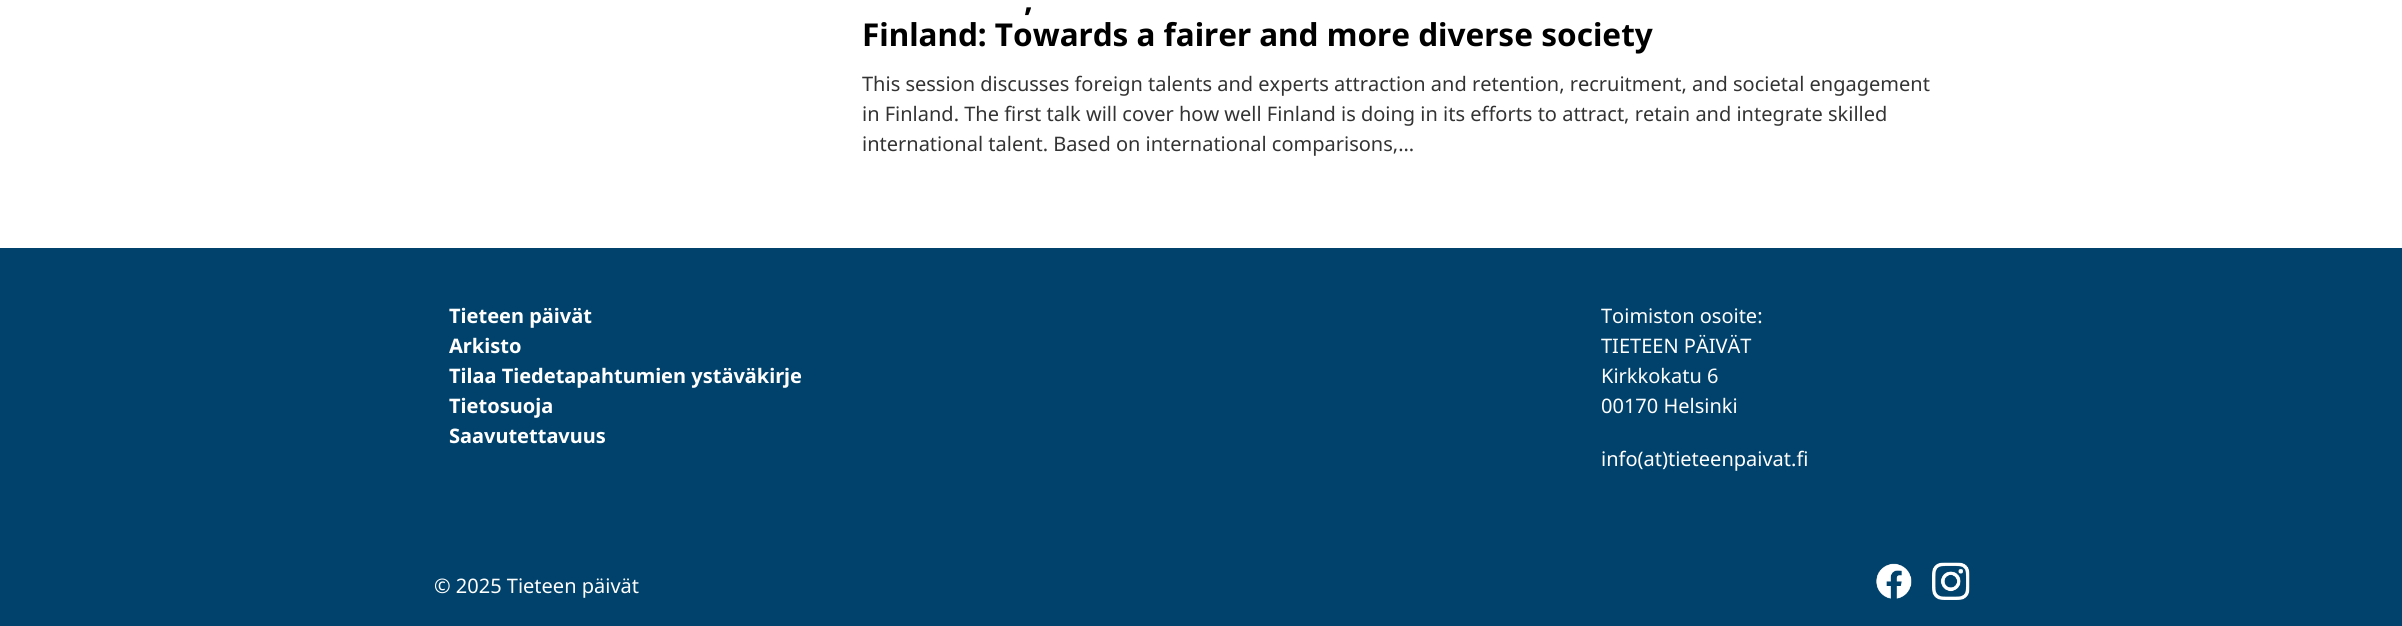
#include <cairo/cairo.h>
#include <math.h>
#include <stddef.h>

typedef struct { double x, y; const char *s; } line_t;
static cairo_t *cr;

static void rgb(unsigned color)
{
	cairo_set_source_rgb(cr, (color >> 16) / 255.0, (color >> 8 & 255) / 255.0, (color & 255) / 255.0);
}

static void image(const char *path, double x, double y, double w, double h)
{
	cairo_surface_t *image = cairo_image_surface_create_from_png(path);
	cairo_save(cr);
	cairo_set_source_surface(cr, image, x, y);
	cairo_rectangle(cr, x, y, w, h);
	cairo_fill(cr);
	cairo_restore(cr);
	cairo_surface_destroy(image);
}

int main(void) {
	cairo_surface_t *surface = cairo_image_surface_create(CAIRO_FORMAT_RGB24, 2402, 626);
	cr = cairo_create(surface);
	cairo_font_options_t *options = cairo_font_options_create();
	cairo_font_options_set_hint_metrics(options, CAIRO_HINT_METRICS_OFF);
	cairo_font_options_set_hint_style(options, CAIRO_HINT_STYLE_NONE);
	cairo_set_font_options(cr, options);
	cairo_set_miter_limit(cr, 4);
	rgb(0xffffff);
	cairo_paint(cr);
	rgb(0x00426b);
	cairo_rectangle(cr, 0, 248, 2402, 378);
	cairo_fill(cr);
	image("img/1.png", 1876, 563, 36, 36);
	image("img/2.png", 1932, 562, 38, 38);
	cairo_select_font_face(cr, "Noto Sans", CAIRO_FONT_SLANT_NORMAL, CAIRO_FONT_WEIGHT_BOLD);
	cairo_set_font_size(cr, 31.5);
	rgb(0x000000);
	cairo_move_to(cr, 1024, 11);
	cairo_show_text(cr, ",");
	cairo_move_to(cr, 862, 46);
	cairo_show_text(cr, "Finland: Towards a fairer and more diverse society");
	cairo_select_font_face(cr, "Noto Sans", CAIRO_FONT_SLANT_NORMAL, CAIRO_FONT_WEIGHT_NORMAL);
	cairo_set_font_size(cr, 20);
	rgb(0x333333);
	{
		static const line_t items[] = {
			{862, 91, "This session discusses foreign talents and experts attraction and retention, recruitment, and societal engagement"},
			{862, 121, "in Finland. The first talk will cover how well Finland is doing in its efforts to attract, retain and integrate skilled"},
			{862, 151, "international talent. Based on international comparisons,..."},
		};
		for (size_t i = 0; i < sizeof items / sizeof *items; i++) {
			cairo_move_to(cr, items[i].x, items[i].y);
			cairo_show_text(cr, items[i].s);
		}
	}
	cairo_select_font_face(cr, "Noto Sans", CAIRO_FONT_SLANT_NORMAL, CAIRO_FONT_WEIGHT_BOLD);
	rgb(0xffffff);
	{
		static const line_t items[] = {
			{449, 323, "Tieteen päivät"},
			{449, 353, "Arkisto"},
			{449, 383, "Tilaa Tiedetapahtumien ystäväkirje"},
			{449, 413, "Tietosuoja"},
			{449, 443, "Saavutettavuus"},
		};
		for (size_t i = 0; i < sizeof items / sizeof *items; i++) {
			cairo_move_to(cr, items[i].x, items[i].y);
			cairo_show_text(cr, items[i].s);
		}
	}
	cairo_select_font_face(cr, "Noto Sans", CAIRO_FONT_SLANT_NORMAL, CAIRO_FONT_WEIGHT_NORMAL);
	{
		static const line_t items[] = {
			{1601, 323, "Toimiston osoite:"},
			{1601, 353, "TIETEEN PÄIVÄT"},
			{1601, 383, "Kirkkokatu 6"},
			{1601, 413, "00170 Helsinki"},
			{1601, 466, "info(at)tieteenpaivat.fi"},
			{434, 593, "© 2025 Tieteen päivät"},
		};
		for (size_t i = 0; i < sizeof items / sizeof *items; i++) {
			cairo_move_to(cr, items[i].x, items[i].y);
			cairo_show_text(cr, items[i].s);
		}
	}
	cairo_surface_write_to_png(surface, "page.png");
	cairo_font_options_destroy(options);
	cairo_destroy(cr);
	cairo_surface_destroy(surface);
	return 0;
}
